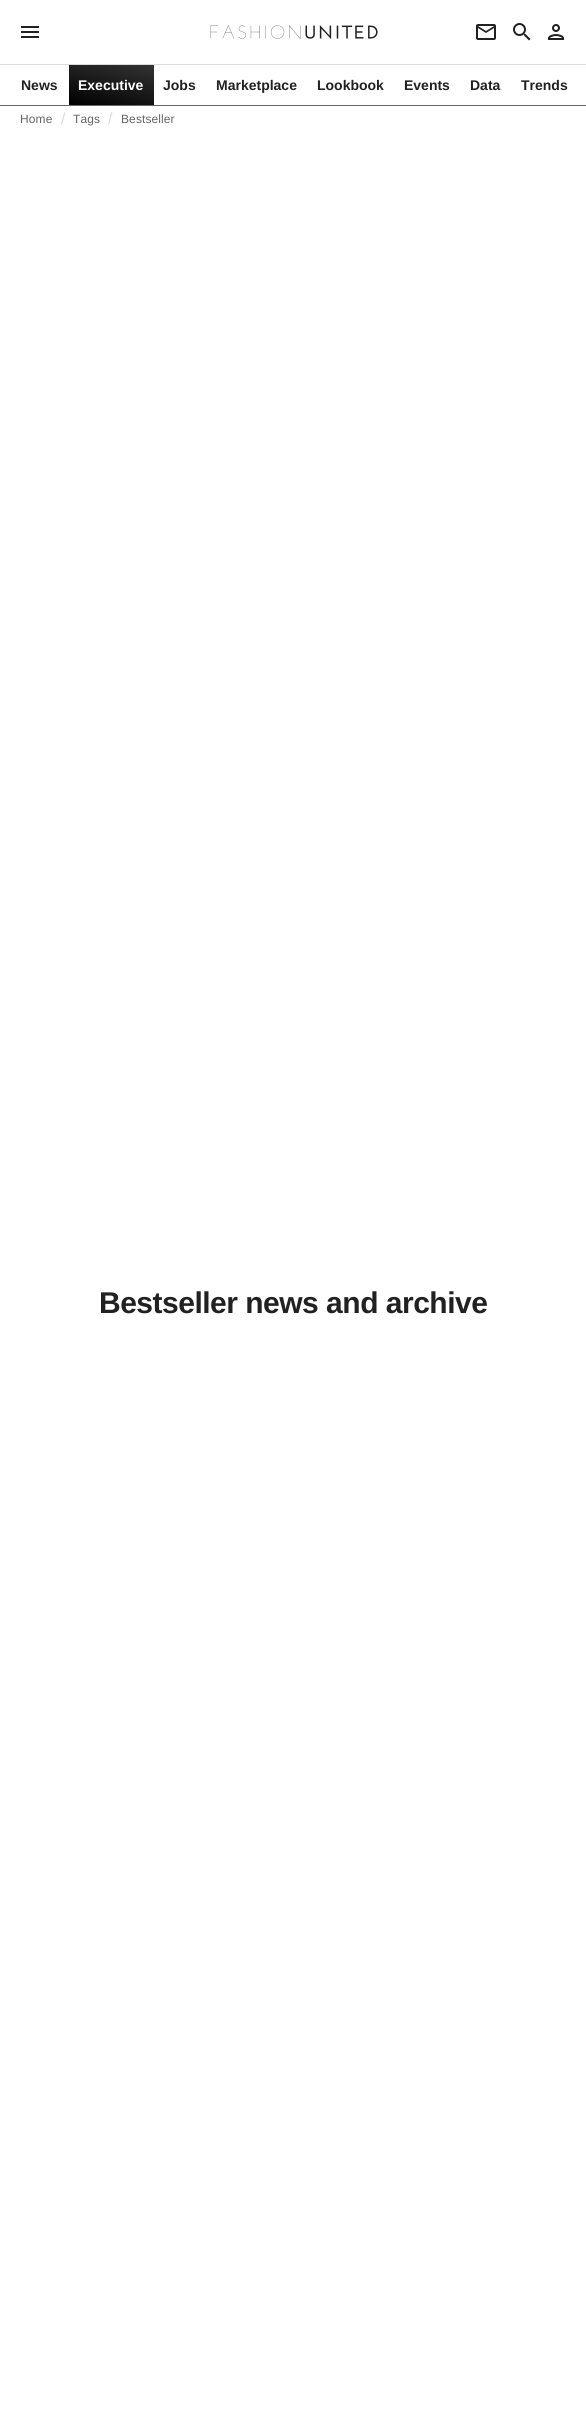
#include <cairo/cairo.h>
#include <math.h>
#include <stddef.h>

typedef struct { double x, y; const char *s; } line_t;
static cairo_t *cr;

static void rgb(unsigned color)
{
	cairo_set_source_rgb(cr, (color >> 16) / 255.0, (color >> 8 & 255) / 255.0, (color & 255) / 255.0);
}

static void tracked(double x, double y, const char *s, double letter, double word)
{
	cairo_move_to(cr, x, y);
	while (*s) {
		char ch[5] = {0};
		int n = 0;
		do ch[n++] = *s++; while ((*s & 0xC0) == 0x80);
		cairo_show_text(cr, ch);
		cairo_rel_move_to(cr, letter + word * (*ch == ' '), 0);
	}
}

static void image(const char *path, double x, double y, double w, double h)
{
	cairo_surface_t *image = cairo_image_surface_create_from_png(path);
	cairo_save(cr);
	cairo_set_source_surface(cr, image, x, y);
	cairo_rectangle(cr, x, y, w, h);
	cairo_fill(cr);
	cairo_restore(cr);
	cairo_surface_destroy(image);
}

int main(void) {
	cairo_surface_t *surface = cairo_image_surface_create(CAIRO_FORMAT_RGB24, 586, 2432);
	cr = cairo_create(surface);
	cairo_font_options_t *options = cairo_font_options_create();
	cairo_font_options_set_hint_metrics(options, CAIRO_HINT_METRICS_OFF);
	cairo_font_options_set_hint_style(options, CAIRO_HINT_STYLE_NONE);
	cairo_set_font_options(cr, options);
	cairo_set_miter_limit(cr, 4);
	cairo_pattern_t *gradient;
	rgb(0xffffff);
	cairo_paint(cr);
	rgb(0xdbdbdb);
	cairo_rectangle(cr, 0, 64, 586, 1);
	cairo_fill(cr);
	image("img/1.png", 21, 26, 18, 12);
	image("img/2.png", 210, 25, 168, 14);
	image("img/3.png", 476, 24, 20, 16);
	image("img/4.png", 513, 23, 18, 18);
	image("img/5.png", 548, 24, 16, 16);
	rgb(0x666666);
	cairo_rectangle(cr, 0, 105, 586, 1);
	cairo_fill(cr);
	gradient = cairo_pattern_create_linear(104, 114, 119, 56);
	cairo_pattern_add_color_stop_rgba(gradient, 0, 0, 0, 0, 1);
	cairo_pattern_add_color_stop_rgba(gradient, 1, 0.2, 0.2, 0.2, 1);
	cairo_set_source(cr, gradient);
	cairo_pattern_destroy(gradient);
	cairo_rectangle(cr, 69, 65, 85, 40);
	cairo_fill(cr);
	cairo_select_font_face(cr, "Liberation Sans", CAIRO_FONT_SLANT_NORMAL, CAIRO_FONT_WEIGHT_BOLD);
	cairo_set_font_size(cr, 14);
	rgb(0x212121);
	cairo_move_to(cr, 21, 90);
	cairo_show_text(cr, "News");
	rgb(0xffffff);
	cairo_move_to(cr, 78, 90);
	cairo_show_text(cr, "Executive");
	rgb(0x212121);
	{
		static const line_t items[] = {
			{163, 90, "Jobs"},
			{216, 90, "Marketplace"},
			{317, 90, "Lookbook"},
			{404, 90, "Events"},
			{470, 90, "Data"},
			{521, 90, "Trends"},
		};
		for (size_t i = 0; i < sizeof items / sizeof *items; i++) {
			cairo_move_to(cr, items[i].x, items[i].y);
			cairo_show_text(cr, items[i].s);
		}
	}
	cairo_select_font_face(cr, "Liberation Sans", CAIRO_FONT_SLANT_NORMAL, CAIRO_FONT_WEIGHT_NORMAL);
	cairo_set_font_size(cr, 12);
	rgb(0x666666);
	tracked(20, 123, "Home", 0.1, 0);
	cairo_set_font_size(cr, 16);
	rgb(0xdbdbdb);
	cairo_move_to(cr, 61, 124);
	cairo_show_text(cr, "/");
	cairo_set_font_size(cr, 12);
	rgb(0x666666);
	tracked(73, 123, "Tags", 0.1, 0);
	cairo_set_font_size(cr, 16);
	rgb(0xdbdbdb);
	cairo_move_to(cr, 108, 124);
	cairo_show_text(cr, "/");
	cairo_set_font_size(cr, 12);
	rgb(0x666666);
	tracked(121, 123, "Bestseller", 0.1, 0);
	cairo_select_font_face(cr, "Liberation Sans", CAIRO_FONT_SLANT_NORMAL, CAIRO_FONT_WEIGHT_BOLD);
	cairo_set_font_size(cr, 30);
	rgb(0x212121);
	tracked(99, 1313, "Bestseller news and archive", -0.5, 0);
	cairo_surface_write_to_png(surface, "page.png");
	cairo_font_options_destroy(options);
	cairo_destroy(cr);
	cairo_surface_destroy(surface);
	return 0;
}
